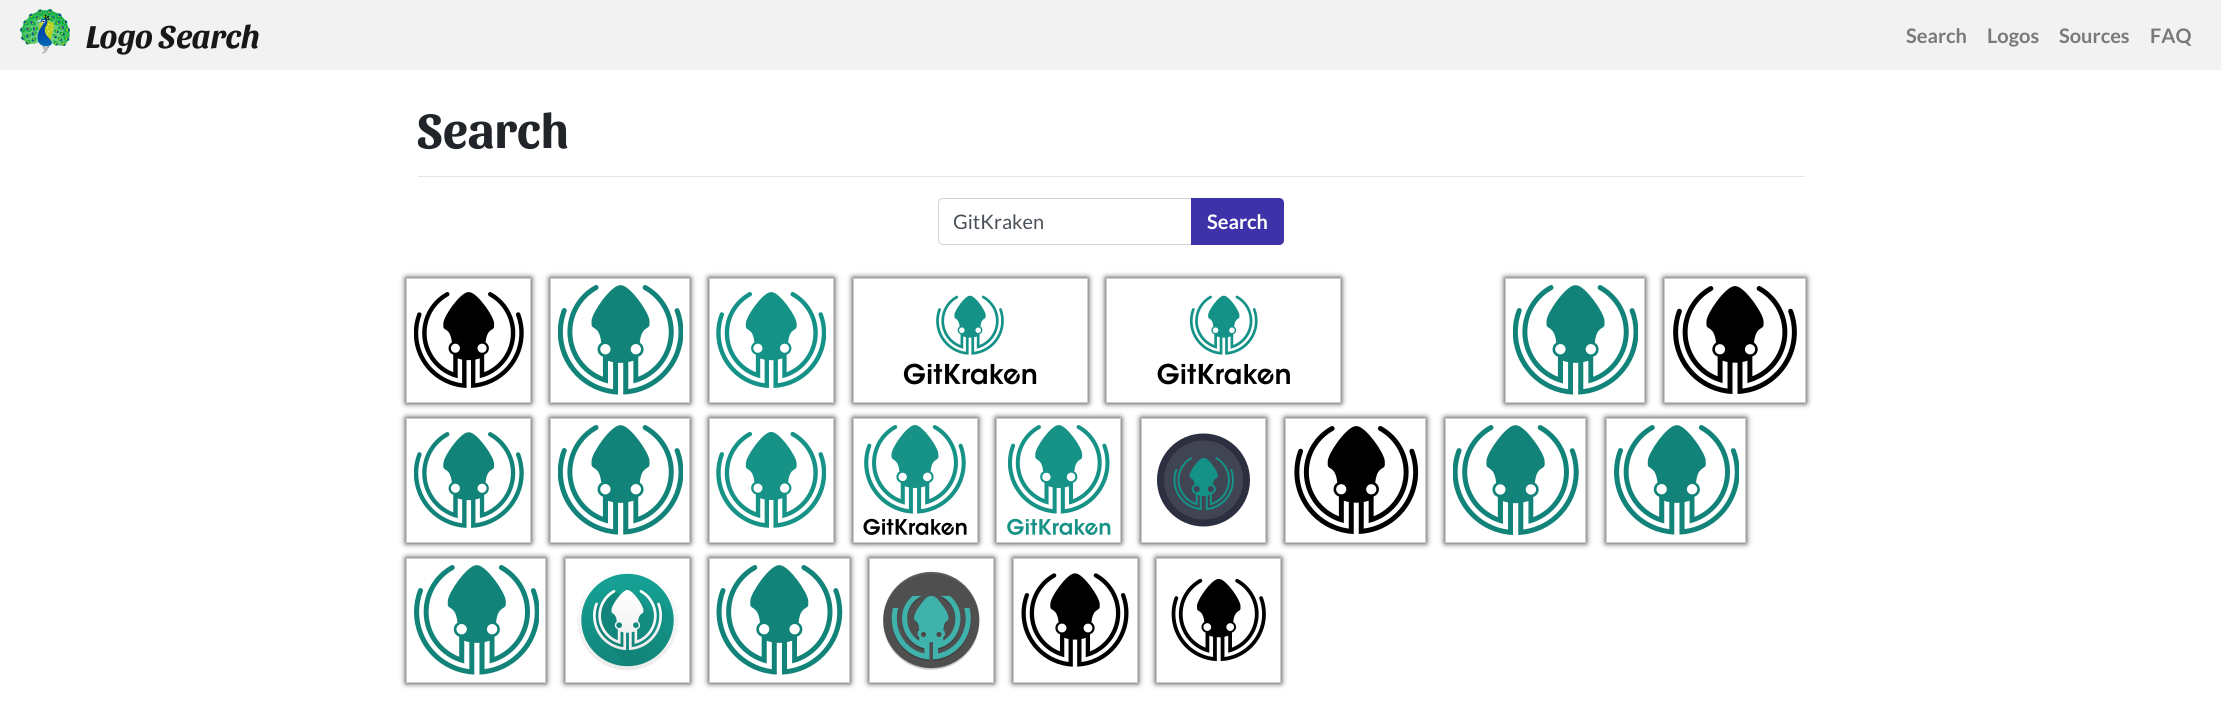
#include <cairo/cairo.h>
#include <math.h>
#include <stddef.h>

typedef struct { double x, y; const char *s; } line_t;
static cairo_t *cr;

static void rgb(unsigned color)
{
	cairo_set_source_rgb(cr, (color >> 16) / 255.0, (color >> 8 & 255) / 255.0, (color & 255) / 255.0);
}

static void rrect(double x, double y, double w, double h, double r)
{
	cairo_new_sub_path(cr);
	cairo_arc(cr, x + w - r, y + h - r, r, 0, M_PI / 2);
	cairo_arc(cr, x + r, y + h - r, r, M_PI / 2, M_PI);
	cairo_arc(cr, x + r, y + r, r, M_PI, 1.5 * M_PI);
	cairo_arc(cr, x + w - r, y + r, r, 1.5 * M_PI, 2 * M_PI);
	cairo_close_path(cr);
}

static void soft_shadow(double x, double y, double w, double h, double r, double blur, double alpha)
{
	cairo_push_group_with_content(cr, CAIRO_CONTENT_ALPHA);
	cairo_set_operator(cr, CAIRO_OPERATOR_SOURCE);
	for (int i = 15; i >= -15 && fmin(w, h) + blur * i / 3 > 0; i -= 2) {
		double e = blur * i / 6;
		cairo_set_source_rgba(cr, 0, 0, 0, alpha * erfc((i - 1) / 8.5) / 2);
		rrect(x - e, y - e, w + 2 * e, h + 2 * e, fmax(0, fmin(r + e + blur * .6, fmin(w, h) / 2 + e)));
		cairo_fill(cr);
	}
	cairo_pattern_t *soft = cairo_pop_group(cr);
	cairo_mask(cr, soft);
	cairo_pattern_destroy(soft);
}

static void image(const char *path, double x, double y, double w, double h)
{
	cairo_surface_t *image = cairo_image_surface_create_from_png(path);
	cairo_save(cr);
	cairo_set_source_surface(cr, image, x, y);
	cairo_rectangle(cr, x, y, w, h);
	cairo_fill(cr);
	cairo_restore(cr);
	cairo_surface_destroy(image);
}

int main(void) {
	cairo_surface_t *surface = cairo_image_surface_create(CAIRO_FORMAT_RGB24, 2221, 701);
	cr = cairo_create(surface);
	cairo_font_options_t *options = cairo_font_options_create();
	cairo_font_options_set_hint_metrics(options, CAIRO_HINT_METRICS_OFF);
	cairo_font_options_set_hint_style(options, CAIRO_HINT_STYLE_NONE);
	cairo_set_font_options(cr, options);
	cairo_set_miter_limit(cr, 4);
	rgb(0xffffff);
	cairo_paint(cr);
	rgb(0xf2f2f2);
	cairo_rectangle(cr, 0, 0, 2221, 70);
	cairo_fill(cr);
	image("img/1.png", 20, 9, 50, 45);
	rgb(0xe6e6e6);
	cairo_rectangle(cr, 418, 176, 1387, 1);
	cairo_fill(cr);
	cairo_new_path(cr);
	cairo_move_to(cr, 943, 198.5);
	cairo_line_to(cr, 1192.5, 198.5);
	cairo_line_to(cr, 1192.5, 244.5);
	cairo_line_to(cr, 943, 244.5);
	cairo_curve_to(cr, 940.5, 244.5, 938.5, 242.5, 938.5, 240);
	cairo_line_to(cr, 938.5, 203);
	cairo_curve_to(cr, 938.5, 200.5, 940.5, 198.5, 943, 198.5);
	cairo_close_path(cr);
	rgb(0xced4da);
	cairo_set_line_width(cr, 1);
	cairo_stroke(cr);
	rgb(0x3e32a8);
	cairo_new_path(cr);
	cairo_move_to(cr, 1191, 198);
	cairo_line_to(cr, 1279, 198);
	cairo_curve_to(cr, 1282, 198, 1284, 200, 1284, 203);
	cairo_line_to(cr, 1284, 240);
	cairo_curve_to(cr, 1284, 243, 1282, 245, 1279, 245);
	cairo_line_to(cr, 1191, 245);
	cairo_close_path(cr);
	cairo_fill(cr);
	cairo_save(cr);
	cairo_set_fill_rule(cr, CAIRO_FILL_RULE_EVEN_ODD);
	cairo_new_path(cr);
	cairo_move_to(cr, 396, 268);
	cairo_line_to(cr, 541, 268);
	cairo_line_to(cr, 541, 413);
	cairo_line_to(cr, 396, 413);
	cairo_close_path(cr);
	cairo_move_to(cr, 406, 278);
	cairo_line_to(cr, 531, 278);
	cairo_line_to(cr, 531, 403);
	cairo_line_to(cr, 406, 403);
	cairo_close_path(cr);
	cairo_clip(cr);
	rgb(0x1d1d1d);
	soft_shadow(406, 278, 125, 125, 0, 3, 1);
	cairo_restore(cr);
	cairo_save(cr);
	cairo_set_fill_rule(cr, CAIRO_FILL_RULE_EVEN_ODD);
	cairo_new_path(cr);
	cairo_move_to(cr, 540, 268);
	cairo_line_to(cr, 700, 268);
	cairo_line_to(cr, 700, 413);
	cairo_line_to(cr, 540, 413);
	cairo_close_path(cr);
	cairo_move_to(cr, 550, 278);
	cairo_line_to(cr, 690, 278);
	cairo_line_to(cr, 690, 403);
	cairo_line_to(cr, 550, 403);
	cairo_close_path(cr);
	cairo_clip(cr);
	rgb(0x1d1d1d);
	soft_shadow(550, 278, 140, 125, 0, 3, 1);
	cairo_restore(cr);
	cairo_save(cr);
	cairo_set_fill_rule(cr, CAIRO_FILL_RULE_EVEN_ODD);
	cairo_new_path(cr);
	cairo_move_to(cr, 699, 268);
	cairo_line_to(cr, 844, 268);
	cairo_line_to(cr, 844, 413);
	cairo_line_to(cr, 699, 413);
	cairo_close_path(cr);
	cairo_move_to(cr, 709, 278);
	cairo_line_to(cr, 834, 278);
	cairo_line_to(cr, 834, 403);
	cairo_line_to(cr, 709, 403);
	cairo_close_path(cr);
	cairo_clip(cr);
	rgb(0x1d1d1d);
	soft_shadow(709, 278, 125, 125, 0, 3, 1);
	cairo_restore(cr);
	cairo_save(cr);
	cairo_set_fill_rule(cr, CAIRO_FILL_RULE_EVEN_ODD);
	cairo_new_path(cr);
	cairo_move_to(cr, 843, 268);
	cairo_line_to(cr, 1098, 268);
	cairo_line_to(cr, 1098, 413);
	cairo_line_to(cr, 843, 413);
	cairo_close_path(cr);
	cairo_move_to(cr, 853, 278);
	cairo_line_to(cr, 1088, 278);
	cairo_line_to(cr, 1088, 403);
	cairo_line_to(cr, 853, 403);
	cairo_close_path(cr);
	cairo_clip(cr);
	rgb(0x1d1d1d);
	soft_shadow(853, 278, 235, 125, 0, 3, 1);
	cairo_restore(cr);
	cairo_save(cr);
	cairo_set_fill_rule(cr, CAIRO_FILL_RULE_EVEN_ODD);
	cairo_new_path(cr);
	cairo_move_to(cr, 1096, 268);
	cairo_line_to(cr, 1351, 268);
	cairo_line_to(cr, 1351, 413);
	cairo_line_to(cr, 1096, 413);
	cairo_close_path(cr);
	cairo_move_to(cr, 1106, 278);
	cairo_line_to(cr, 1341, 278);
	cairo_line_to(cr, 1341, 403);
	cairo_line_to(cr, 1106, 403);
	cairo_close_path(cr);
	cairo_clip(cr);
	rgb(0x1d1d1d);
	soft_shadow(1106, 278, 235, 125, 0, 3, 1);
	cairo_restore(cr);
	cairo_save(cr);
	cairo_set_fill_rule(cr, CAIRO_FILL_RULE_EVEN_ODD);
	cairo_new_path(cr);
	cairo_move_to(cr, 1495, 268);
	cairo_line_to(cr, 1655, 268);
	cairo_line_to(cr, 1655, 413);
	cairo_line_to(cr, 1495, 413);
	cairo_close_path(cr);
	cairo_move_to(cr, 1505, 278);
	cairo_line_to(cr, 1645, 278);
	cairo_line_to(cr, 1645, 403);
	cairo_line_to(cr, 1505, 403);
	cairo_close_path(cr);
	cairo_clip(cr);
	rgb(0x1d1d1d);
	soft_shadow(1505, 278, 140, 125, 0, 3, 1);
	cairo_restore(cr);
	cairo_save(cr);
	cairo_set_fill_rule(cr, CAIRO_FILL_RULE_EVEN_ODD);
	cairo_new_path(cr);
	cairo_move_to(cr, 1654, 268);
	cairo_line_to(cr, 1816, 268);
	cairo_line_to(cr, 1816, 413);
	cairo_line_to(cr, 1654, 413);
	cairo_close_path(cr);
	cairo_move_to(cr, 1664, 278);
	cairo_line_to(cr, 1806, 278);
	cairo_line_to(cr, 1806, 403);
	cairo_line_to(cr, 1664, 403);
	cairo_close_path(cr);
	cairo_clip(cr);
	rgb(0x1d1d1d);
	soft_shadow(1664, 278, 142, 125, 0, 3, 1);
	cairo_restore(cr);
	cairo_rectangle(cr, 406.5, 278.5, 124, 124);
	rgb(0xcccccc);
	cairo_stroke(cr);
	cairo_rectangle(cr, 550.5, 278.5, 139, 124);
	cairo_stroke(cr);
	cairo_rectangle(cr, 709.5, 278.5, 124, 124);
	cairo_stroke(cr);
	cairo_rectangle(cr, 853.5, 278.5, 234, 124);
	cairo_stroke(cr);
	cairo_rectangle(cr, 1106.5, 278.5, 234, 124);
	cairo_stroke(cr);
	cairo_rectangle(cr, 1505.5, 278.5, 139, 124);
	cairo_stroke(cr);
	cairo_rectangle(cr, 1664.5, 278.5, 141, 124);
	cairo_stroke(cr);
	image("img/2.png", 414, 292, 110, 96);
	image("img/3.png", 558, 285, 125, 110);
	image("img/4.png", 716, 292, 110, 96);
	image("img/5.png", 903, 295, 134, 90);
	image("img/6.png", 1157, 295, 133, 90);
	image("img/7.png", 1513, 285, 125, 110);
	image("img/8.png", 1673, 286, 124, 108);
	cairo_save(cr);
	cairo_set_fill_rule(cr, CAIRO_FILL_RULE_EVEN_ODD);
	cairo_new_path(cr);
	cairo_move_to(cr, 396, 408);
	cairo_line_to(cr, 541, 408);
	cairo_line_to(cr, 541, 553);
	cairo_line_to(cr, 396, 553);
	cairo_close_path(cr);
	cairo_move_to(cr, 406, 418);
	cairo_line_to(cr, 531, 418);
	cairo_line_to(cr, 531, 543);
	cairo_line_to(cr, 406, 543);
	cairo_close_path(cr);
	cairo_clip(cr);
	rgb(0x1d1d1d);
	soft_shadow(406, 418, 125, 125, 0, 3, 1);
	cairo_restore(cr);
	cairo_save(cr);
	cairo_set_fill_rule(cr, CAIRO_FILL_RULE_EVEN_ODD);
	cairo_new_path(cr);
	cairo_move_to(cr, 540, 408);
	cairo_line_to(cr, 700, 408);
	cairo_line_to(cr, 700, 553);
	cairo_line_to(cr, 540, 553);
	cairo_close_path(cr);
	cairo_move_to(cr, 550, 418);
	cairo_line_to(cr, 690, 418);
	cairo_line_to(cr, 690, 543);
	cairo_line_to(cr, 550, 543);
	cairo_close_path(cr);
	cairo_clip(cr);
	rgb(0x1d1d1d);
	soft_shadow(550, 418, 140, 125, 0, 3, 1);
	cairo_restore(cr);
	cairo_save(cr);
	cairo_set_fill_rule(cr, CAIRO_FILL_RULE_EVEN_ODD);
	cairo_new_path(cr);
	cairo_move_to(cr, 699, 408);
	cairo_line_to(cr, 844, 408);
	cairo_line_to(cr, 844, 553);
	cairo_line_to(cr, 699, 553);
	cairo_close_path(cr);
	cairo_move_to(cr, 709, 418);
	cairo_line_to(cr, 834, 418);
	cairo_line_to(cr, 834, 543);
	cairo_line_to(cr, 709, 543);
	cairo_close_path(cr);
	cairo_clip(cr);
	rgb(0x1d1d1d);
	soft_shadow(709, 418, 125, 125, 0, 3, 1);
	cairo_restore(cr);
	cairo_save(cr);
	cairo_set_fill_rule(cr, CAIRO_FILL_RULE_EVEN_ODD);
	cairo_new_path(cr);
	cairo_move_to(cr, 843, 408);
	cairo_line_to(cr, 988, 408);
	cairo_line_to(cr, 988, 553);
	cairo_line_to(cr, 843, 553);
	cairo_close_path(cr);
	cairo_move_to(cr, 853, 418);
	cairo_line_to(cr, 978, 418);
	cairo_line_to(cr, 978, 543);
	cairo_line_to(cr, 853, 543);
	cairo_close_path(cr);
	cairo_clip(cr);
	rgb(0x1d1d1d);
	soft_shadow(853, 418, 125, 125, 0, 3, 1);
	cairo_restore(cr);
	cairo_save(cr);
	cairo_set_fill_rule(cr, CAIRO_FILL_RULE_EVEN_ODD);
	cairo_new_path(cr);
	cairo_move_to(cr, 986, 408);
	cairo_line_to(cr, 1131, 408);
	cairo_line_to(cr, 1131, 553);
	cairo_line_to(cr, 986, 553);
	cairo_close_path(cr);
	cairo_move_to(cr, 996, 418);
	cairo_line_to(cr, 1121, 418);
	cairo_line_to(cr, 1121, 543);
	cairo_line_to(cr, 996, 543);
	cairo_close_path(cr);
	cairo_clip(cr);
	rgb(0x1d1d1d);
	soft_shadow(996, 418, 125, 125, 0, 3, 1);
	cairo_restore(cr);
	cairo_save(cr);
	cairo_set_fill_rule(cr, CAIRO_FILL_RULE_EVEN_ODD);
	cairo_new_path(cr);
	cairo_move_to(cr, 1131, 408);
	cairo_line_to(cr, 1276, 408);
	cairo_line_to(cr, 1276, 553);
	cairo_line_to(cr, 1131, 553);
	cairo_close_path(cr);
	cairo_move_to(cr, 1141, 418);
	cairo_line_to(cr, 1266, 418);
	cairo_line_to(cr, 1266, 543);
	cairo_line_to(cr, 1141, 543);
	cairo_close_path(cr);
	cairo_clip(cr);
	rgb(0x1d1d1d);
	soft_shadow(1141, 418, 125, 125, 0, 3, 1);
	cairo_restore(cr);
	cairo_save(cr);
	cairo_set_fill_rule(cr, CAIRO_FILL_RULE_EVEN_ODD);
	cairo_new_path(cr);
	cairo_move_to(cr, 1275, 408);
	cairo_line_to(cr, 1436, 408);
	cairo_line_to(cr, 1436, 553);
	cairo_line_to(cr, 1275, 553);
	cairo_close_path(cr);
	cairo_move_to(cr, 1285, 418);
	cairo_line_to(cr, 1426, 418);
	cairo_line_to(cr, 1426, 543);
	cairo_line_to(cr, 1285, 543);
	cairo_close_path(cr);
	cairo_clip(cr);
	rgb(0x1d1d1d);
	soft_shadow(1285, 418, 141, 125, 0, 3, 1);
	cairo_restore(cr);
	cairo_save(cr);
	cairo_set_fill_rule(cr, CAIRO_FILL_RULE_EVEN_ODD);
	cairo_new_path(cr);
	cairo_move_to(cr, 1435, 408);
	cairo_line_to(cr, 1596, 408);
	cairo_line_to(cr, 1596, 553);
	cairo_line_to(cr, 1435, 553);
	cairo_close_path(cr);
	cairo_move_to(cr, 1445, 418);
	cairo_line_to(cr, 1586, 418);
	cairo_line_to(cr, 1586, 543);
	cairo_line_to(cr, 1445, 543);
	cairo_close_path(cr);
	cairo_clip(cr);
	rgb(0x1d1d1d);
	soft_shadow(1445, 418, 141, 125, 0, 3, 1);
	cairo_restore(cr);
	cairo_save(cr);
	cairo_set_fill_rule(cr, CAIRO_FILL_RULE_EVEN_ODD);
	cairo_new_path(cr);
	cairo_move_to(cr, 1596, 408);
	cairo_line_to(cr, 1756, 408);
	cairo_line_to(cr, 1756, 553);
	cairo_line_to(cr, 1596, 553);
	cairo_close_path(cr);
	cairo_move_to(cr, 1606, 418);
	cairo_line_to(cr, 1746, 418);
	cairo_line_to(cr, 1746, 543);
	cairo_line_to(cr, 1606, 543);
	cairo_close_path(cr);
	cairo_clip(cr);
	rgb(0x1d1d1d);
	soft_shadow(1606, 418, 140, 125, 0, 3, 1);
	cairo_restore(cr);
	cairo_rectangle(cr, 406.5, 418.5, 124, 124);
	cairo_stroke(cr);
	cairo_rectangle(cr, 550.5, 418.5, 139, 124);
	cairo_stroke(cr);
	cairo_rectangle(cr, 709.5, 418.5, 124, 124);
	cairo_stroke(cr);
	cairo_rectangle(cr, 853.5, 418.5, 124, 124);
	cairo_stroke(cr);
	cairo_rectangle(cr, 996.5, 418.5, 124, 124);
	cairo_stroke(cr);
	cairo_rectangle(cr, 1141.5, 418.5, 124, 124);
	cairo_stroke(cr);
	cairo_rectangle(cr, 1285.5, 418.5, 140, 124);
	cairo_stroke(cr);
	cairo_rectangle(cr, 1445.5, 418.5, 140, 124);
	cairo_stroke(cr);
	cairo_rectangle(cr, 1606.5, 418.5, 139, 124);
	cairo_stroke(cr);
	image("img/9.png", 414, 432, 110, 96);
	image("img/7.png", 558, 425, 125, 110);
	image("img/10.png", 716, 431, 110, 97);
	image("img/11.png", 863, 425, 104, 110);
	image("img/12.png", 1007, 425, 104, 110);
	image("img/13.png", 1157, 433, 93, 94);
	image("img/14.png", 1294, 426, 125, 108);
	image("img/15.png", 1453, 425, 126, 110);
	image("img/16.png", 1614, 425, 125, 110);
	cairo_save(cr);
	cairo_set_fill_rule(cr, CAIRO_FILL_RULE_EVEN_ODD);
	cairo_new_path(cr);
	cairo_move_to(cr, 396, 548);
	cairo_line_to(cr, 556, 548);
	cairo_line_to(cr, 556, 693);
	cairo_line_to(cr, 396, 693);
	cairo_close_path(cr);
	cairo_move_to(cr, 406, 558);
	cairo_line_to(cr, 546, 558);
	cairo_line_to(cr, 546, 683);
	cairo_line_to(cr, 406, 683);
	cairo_close_path(cr);
	cairo_clip(cr);
	rgb(0x1d1d1d);
	soft_shadow(406, 558, 140, 125, 0, 3, 1);
	cairo_restore(cr);
	cairo_save(cr);
	cairo_set_fill_rule(cr, CAIRO_FILL_RULE_EVEN_ODD);
	cairo_new_path(cr);
	cairo_move_to(cr, 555, 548);
	cairo_line_to(cr, 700, 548);
	cairo_line_to(cr, 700, 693);
	cairo_line_to(cr, 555, 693);
	cairo_close_path(cr);
	cairo_move_to(cr, 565, 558);
	cairo_line_to(cr, 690, 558);
	cairo_line_to(cr, 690, 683);
	cairo_line_to(cr, 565, 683);
	cairo_close_path(cr);
	cairo_clip(cr);
	rgb(0x1d1d1d);
	soft_shadow(565, 558, 125, 125, 0, 3, 1);
	cairo_restore(cr);
	cairo_save(cr);
	cairo_set_fill_rule(cr, CAIRO_FILL_RULE_EVEN_ODD);
	cairo_new_path(cr);
	cairo_move_to(cr, 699, 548);
	cairo_line_to(cr, 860, 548);
	cairo_line_to(cr, 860, 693);
	cairo_line_to(cr, 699, 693);
	cairo_close_path(cr);
	cairo_move_to(cr, 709, 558);
	cairo_line_to(cr, 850, 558);
	cairo_line_to(cr, 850, 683);
	cairo_line_to(cr, 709, 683);
	cairo_close_path(cr);
	cairo_clip(cr);
	rgb(0x1d1d1d);
	soft_shadow(709, 558, 141, 125, 0, 3, 1);
	cairo_restore(cr);
	cairo_save(cr);
	cairo_set_fill_rule(cr, CAIRO_FILL_RULE_EVEN_ODD);
	cairo_new_path(cr);
	cairo_move_to(cr, 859, 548);
	cairo_line_to(cr, 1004, 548);
	cairo_line_to(cr, 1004, 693);
	cairo_line_to(cr, 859, 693);
	cairo_close_path(cr);
	cairo_move_to(cr, 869, 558);
	cairo_line_to(cr, 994, 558);
	cairo_line_to(cr, 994, 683);
	cairo_line_to(cr, 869, 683);
	cairo_close_path(cr);
	cairo_clip(cr);
	rgb(0x1d1d1d);
	soft_shadow(869, 558, 125, 125, 0, 3, 1);
	cairo_restore(cr);
	cairo_save(cr);
	cairo_set_fill_rule(cr, CAIRO_FILL_RULE_EVEN_ODD);
	cairo_new_path(cr);
	cairo_move_to(cr, 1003, 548);
	cairo_line_to(cr, 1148, 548);
	cairo_line_to(cr, 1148, 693);
	cairo_line_to(cr, 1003, 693);
	cairo_close_path(cr);
	cairo_move_to(cr, 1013, 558);
	cairo_line_to(cr, 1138, 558);
	cairo_line_to(cr, 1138, 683);
	cairo_line_to(cr, 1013, 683);
	cairo_close_path(cr);
	cairo_clip(cr);
	rgb(0x1d1d1d);
	soft_shadow(1013, 558, 125, 125, 0, 3, 1);
	cairo_restore(cr);
	cairo_save(cr);
	cairo_set_fill_rule(cr, CAIRO_FILL_RULE_EVEN_ODD);
	cairo_new_path(cr);
	cairo_move_to(cr, 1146, 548);
	cairo_line_to(cr, 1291, 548);
	cairo_line_to(cr, 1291, 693);
	cairo_line_to(cr, 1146, 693);
	cairo_close_path(cr);
	cairo_move_to(cr, 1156, 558);
	cairo_line_to(cr, 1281, 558);
	cairo_line_to(cr, 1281, 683);
	cairo_line_to(cr, 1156, 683);
	cairo_close_path(cr);
	cairo_clip(cr);
	rgb(0x1d1d1d);
	soft_shadow(1156, 558, 125, 125, 0, 3, 1);
	cairo_restore(cr);
	cairo_rectangle(cr, 406.5, 558.5, 139, 124);
	cairo_stroke(cr);
	cairo_rectangle(cr, 565.5, 558.5, 124, 124);
	cairo_stroke(cr);
	cairo_rectangle(cr, 709.5, 558.5, 140, 124);
	cairo_stroke(cr);
	cairo_rectangle(cr, 869.5, 558.5, 124, 124);
	cairo_stroke(cr);
	cairo_rectangle(cr, 1013.5, 558.5, 124, 124);
	cairo_stroke(cr);
	cairo_rectangle(cr, 1156.5, 558.5, 124, 124);
	cairo_stroke(cr);
	image("img/16.png", 414, 565, 125, 110);
	image("img/17.png", 577, 573, 101, 98);
	image("img/18.png", 716, 565, 127, 110);
	image("img/19.png", 883, 571, 97, 99);
	image("img/20.png", 1021, 573, 108, 94);
	image("img/21.png", 1171, 578, 95, 84);
	cairo_select_font_face(cr, "Sansita", CAIRO_FONT_SLANT_ITALIC, CAIRO_FONT_WEIGHT_BOLD);
	cairo_set_font_size(cr, 33);
	rgb(0x181818);
	cairo_move_to(cr, 86, 48);
	cairo_show_text(cr, "Logo Search");
	cairo_select_font_face(cr, "Lato", CAIRO_FONT_SLANT_NORMAL, CAIRO_FONT_WEIGHT_BOLD);
	cairo_set_font_size(cr, 20);
	rgb(0x797979);
	{
		static const line_t items[] = {
			{1906, 43, "Search"},
			{1987, 43, "Logos"},
			{2059, 43, "Sources"},
			{2150, 43, "FAQ"},
		};
		for (size_t i = 0; i < sizeof items / sizeof *items; i++) {
			cairo_move_to(cr, items[i].x, items[i].y);
			cairo_show_text(cr, items[i].s);
		}
	}
	cairo_select_font_face(cr, "Sansita", CAIRO_FONT_SLANT_NORMAL, CAIRO_FONT_WEIGHT_BOLD);
	cairo_set_font_size(cr, 50);
	rgb(0x212529);
	cairo_move_to(cr, 417, 148);
	cairo_show_text(cr, "Search");
	cairo_select_font_face(cr, "Lato", CAIRO_FONT_SLANT_NORMAL, CAIRO_FONT_WEIGHT_NORMAL);
	cairo_set_font_size(cr, 20);
	rgb(0x495057);
	cairo_move_to(cr, 953, 229);
	cairo_show_text(cr, "GitKraken");
	cairo_select_font_face(cr, "Lato", CAIRO_FONT_SLANT_NORMAL, CAIRO_FONT_WEIGHT_BOLD);
	rgb(0xffffff);
	cairo_move_to(cr, 1207, 229);
	cairo_show_text(cr, "Search");
	cairo_surface_write_to_png(surface, "page.png");
	cairo_font_options_destroy(options);
	cairo_destroy(cr);
	cairo_surface_destroy(surface);
	return 0;
}
